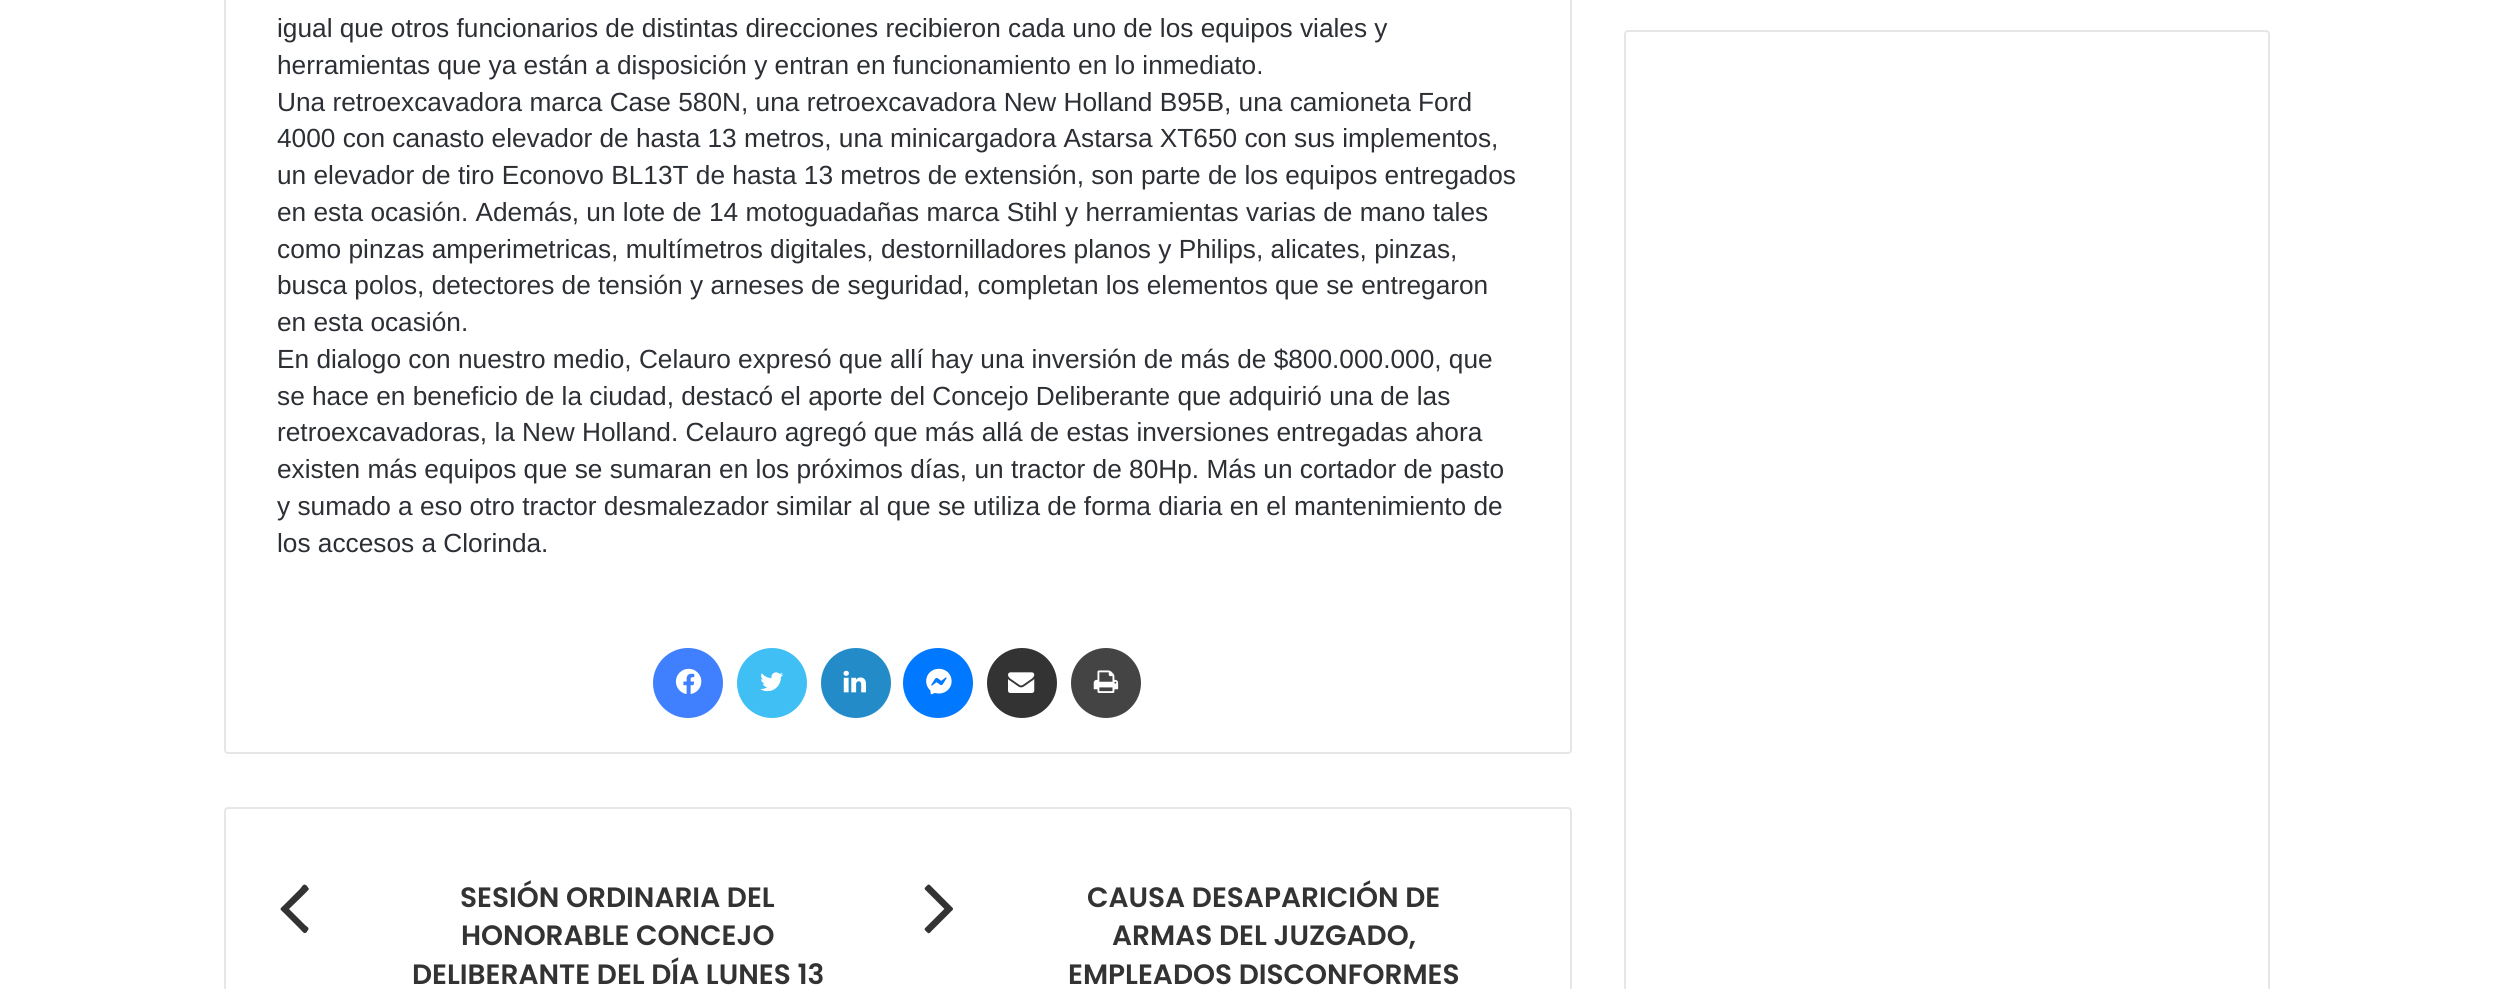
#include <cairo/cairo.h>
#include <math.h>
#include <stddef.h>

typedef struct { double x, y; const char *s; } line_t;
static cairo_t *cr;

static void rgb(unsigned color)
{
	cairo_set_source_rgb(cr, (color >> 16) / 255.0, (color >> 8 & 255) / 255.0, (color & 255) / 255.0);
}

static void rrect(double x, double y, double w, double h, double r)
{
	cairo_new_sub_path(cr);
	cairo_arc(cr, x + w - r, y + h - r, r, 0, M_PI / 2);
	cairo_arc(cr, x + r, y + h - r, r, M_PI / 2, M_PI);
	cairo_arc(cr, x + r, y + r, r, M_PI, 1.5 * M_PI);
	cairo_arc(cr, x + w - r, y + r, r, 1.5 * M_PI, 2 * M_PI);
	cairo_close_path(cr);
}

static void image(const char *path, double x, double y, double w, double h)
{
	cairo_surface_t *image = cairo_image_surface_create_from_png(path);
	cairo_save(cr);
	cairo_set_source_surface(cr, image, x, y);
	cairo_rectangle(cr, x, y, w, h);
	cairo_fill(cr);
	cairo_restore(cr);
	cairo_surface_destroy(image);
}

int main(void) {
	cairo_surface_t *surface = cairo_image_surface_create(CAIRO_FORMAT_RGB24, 2493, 989);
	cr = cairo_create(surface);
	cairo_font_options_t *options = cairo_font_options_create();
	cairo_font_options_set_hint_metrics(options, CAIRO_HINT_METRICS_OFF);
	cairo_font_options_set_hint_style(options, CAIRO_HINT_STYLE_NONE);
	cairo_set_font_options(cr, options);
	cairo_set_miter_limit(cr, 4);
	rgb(0xffffff);
	cairo_paint(cr);
	rrect(225, -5, 1346, 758, 3);
	rgb(0xe6e6e6);
	cairo_stroke(cr);
	rgb(0x4080ff);
	cairo_arc(cr, 688, 683, 35, 0, 2 * M_PI);
	cairo_fill(cr);
	image("img/1.png", 675, 668, 27, 26);
	rgb(0x40bff5);
	cairo_arc(cr, 772, 683, 35, 0, 2 * M_PI);
	cairo_fill(cr);
	image("img/2.png", 760, 672, 24, 20);
	rgb(0x238cc8);
	cairo_arc(cr, 856, 683, 35, 0, 2 * M_PI);
	cairo_fill(cr);
	image("img/3.png", 843, 670, 23, 23);
	rgb(0x0078ff);
	cairo_arc(cr, 938, 683, 35, 0, 2 * M_PI);
	cairo_fill(cr);
	image("img/4.png", 926, 668, 26, 27);
	rgb(0x333333);
	cairo_arc(cr, 1022, 683, 35, 0, 2 * M_PI);
	cairo_fill(cr);
	image("img/5.png", 1008, 672, 27, 21);
	rgb(0x444444);
	cairo_arc(cr, 1106, 683, 35, 0, 2 * M_PI);
	cairo_fill(cr);
	image("img/6.png", 1093, 670, 26, 23);
	rrect(225, 808, 1346, 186, 3);
	rgb(0xe6e6e6);
	cairo_stroke(cr);
	rgb(0x333333);
	cairo_new_path(cr);
	cairo_move_to(cr, 309, 889);
	cairo_curve_to(cr, 309, 890, 292, 906, 289, 909);
	cairo_line_to(cr, 305, 925);
	cairo_curve_to(cr, 306, 926, 310, 928, 308, 930);
	cairo_curve_to(cr, 305, 936, 303, 932, 300, 929);
	cairo_line_to(cr, 285, 914);
	cairo_curve_to(cr, 279, 908, 279, 910, 285, 904);
	cairo_line_to(cr, 300, 889);
	cairo_curve_to(cr, 303, 885, 304, 883, 307, 886);
	cairo_close_path(cr);
	cairo_fill(cr);
	image("img/7.png", 924, 884, 29, 50);
	rrect(1625, 31, 644, 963, 3);
	rgb(0xe6e6e6);
	cairo_stroke(cr);
	cairo_select_font_face(cr, "Liberation Sans", CAIRO_FONT_SLANT_NORMAL, CAIRO_FONT_WEIGHT_NORMAL);
	cairo_set_font_size(cr, 26.25);
	rgb(0x2c2f34);
	{
		static const line_t items[] = {
			{277, 37, "igual que otros funcionarios de distintas direcciones recibieron cada uno de los equipos viales y"},
			{277, 74, "herramientas que ya están a disposición y entran en funcionamiento en lo inmediato."},
			{277, 111, "Una retroexcavadora marca Case 580N, una retroexcavadora New Holland B95B, una camioneta Ford"},
			{277, 147, "4000 con canasto elevador de hasta 13 metros, una minicargadora Astarsa XT650 con sus implementos,"},
			{277, 184, "un elevador de tiro Econovo BL13T de hasta 13 metros de extensión, son parte de los equipos entregados"},
			{277, 221, "en esta ocasión. Además, un lote de 14 motoguadañas marca Stihl y herramientas varias de mano tales"},
			{277, 258, "como pinzas amperimetricas, multímetros digitales, destornilladores planos y Philips, alicates, pinzas,"},
			{277, 294, "busca polos, detectores de tensión y arneses de seguridad, completan los elementos que se entregaron"},
			{277, 331, "en esta ocasión."},
			{277, 368, "En dialogo con nuestro medio, Celauro expresó que allí hay una inversión de más de $800.000.000, que"},
			{277, 405, "se hace en beneficio de la ciudad, destacó el aporte del Concejo Deliberante que adquirió una de las"},
			{277, 441, "retroexcavadoras, la New Holland. Celauro agregó que más allá de estas inversiones entregadas ahora"},
			{277, 478, "existen más equipos que se sumaran en los próximos días, un tractor de 80Hp. Más un cortador de pasto"},
			{277, 515, "y sumado a eso otro tractor desmalezador similar al que se utiliza de forma diaria en el mantenimiento de"},
			{277, 552, "los accesos a Clorinda."},
		};
		for (size_t i = 0; i < sizeof items / sizeof *items; i++) {
			cairo_move_to(cr, items[i].x, items[i].y);
			cairo_show_text(cr, items[i].s);
		}
	}
	cairo_select_font_face(cr, "Poppins SemiBold", CAIRO_FONT_SLANT_NORMAL, CAIRO_FONT_WEIGHT_NORMAL);
	cairo_set_font_size(cr, 28);
	rgb(0x333333);
	{
		static const line_t items[] = {
			{460, 907, "SESIÓN ORDINARIA DEL"},
			{461, 945, "HONORABLE CONCEJO"},
			{412, 984, "DELIBERANTE DEL DÍA LUNES 13"},
			{1087, 907, "CAUSA DESAPARICIÓN DE"},
			{1112, 945, "ARMAS DEL JUZGADO,"},
			{1068, 984, "EMPLEADOS DISCONFORMES"},
		};
		for (size_t i = 0; i < sizeof items / sizeof *items; i++) {
			cairo_move_to(cr, items[i].x, items[i].y);
			cairo_show_text(cr, items[i].s);
		}
	}
	cairo_surface_write_to_png(surface, "page.png");
	cairo_font_options_destroy(options);
	cairo_destroy(cr);
	cairo_surface_destroy(surface);
	return 0;
}
